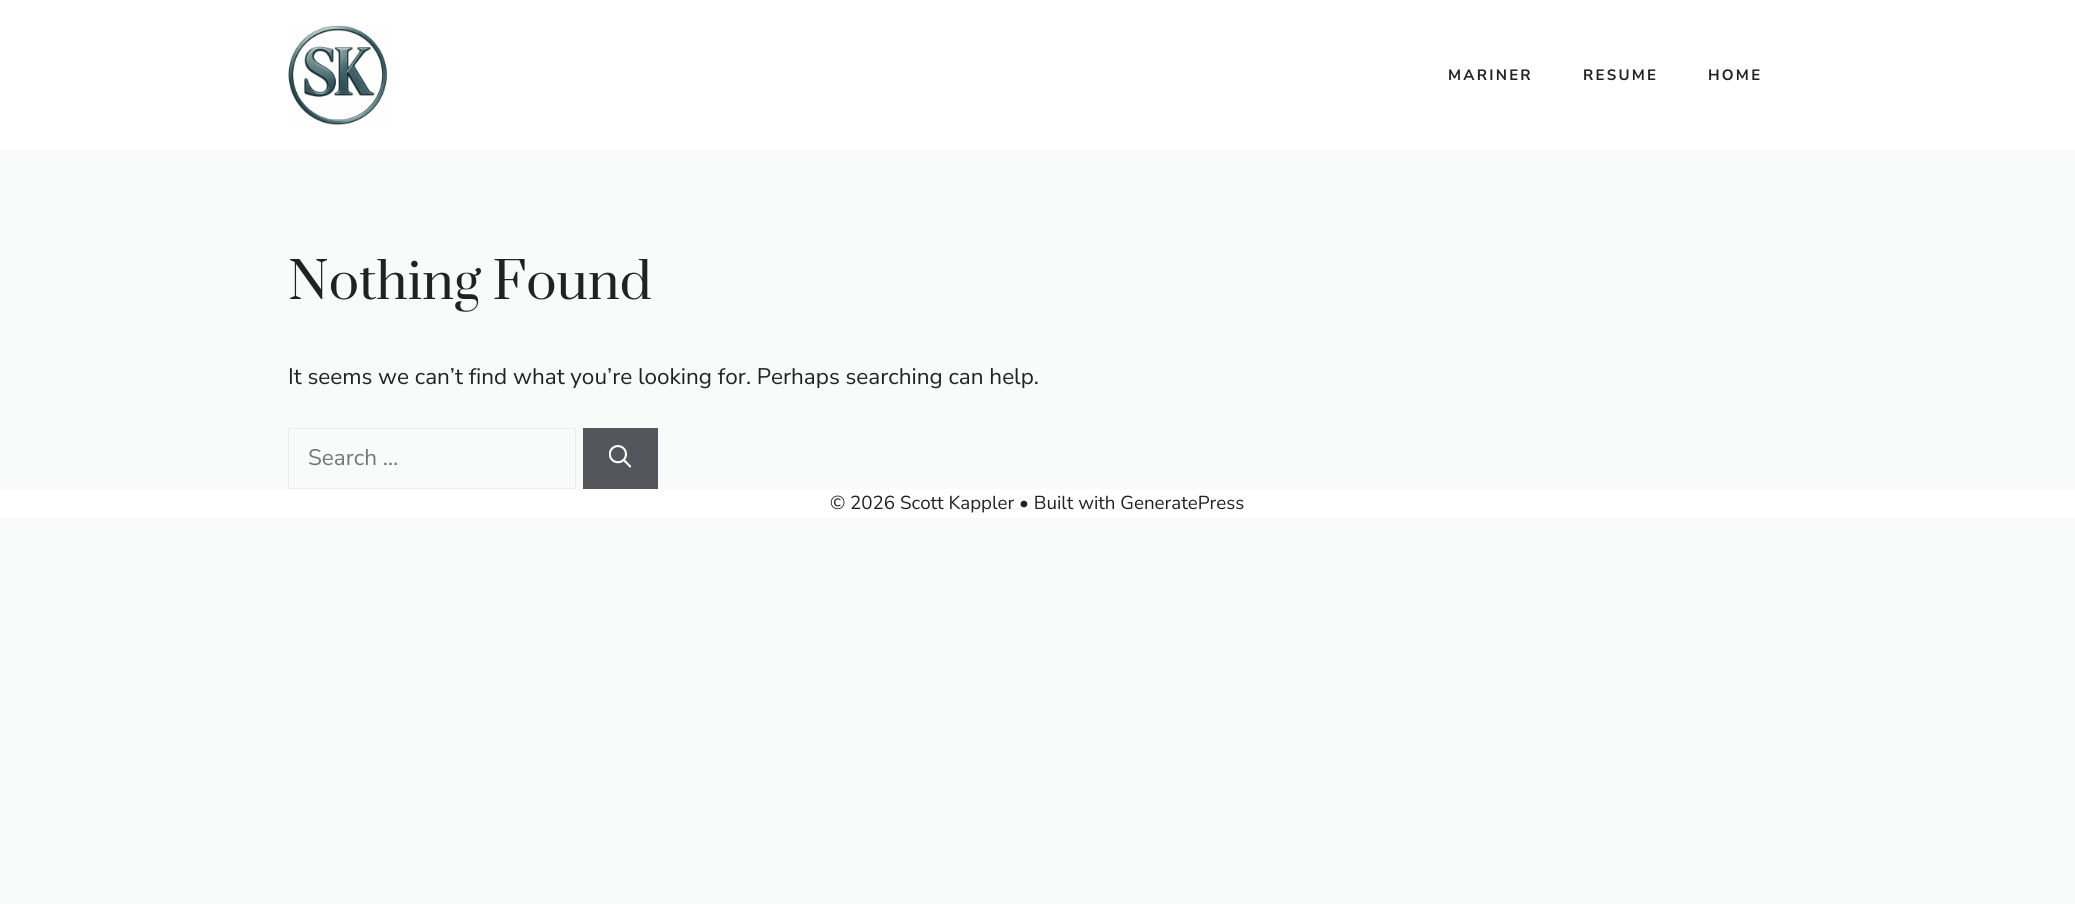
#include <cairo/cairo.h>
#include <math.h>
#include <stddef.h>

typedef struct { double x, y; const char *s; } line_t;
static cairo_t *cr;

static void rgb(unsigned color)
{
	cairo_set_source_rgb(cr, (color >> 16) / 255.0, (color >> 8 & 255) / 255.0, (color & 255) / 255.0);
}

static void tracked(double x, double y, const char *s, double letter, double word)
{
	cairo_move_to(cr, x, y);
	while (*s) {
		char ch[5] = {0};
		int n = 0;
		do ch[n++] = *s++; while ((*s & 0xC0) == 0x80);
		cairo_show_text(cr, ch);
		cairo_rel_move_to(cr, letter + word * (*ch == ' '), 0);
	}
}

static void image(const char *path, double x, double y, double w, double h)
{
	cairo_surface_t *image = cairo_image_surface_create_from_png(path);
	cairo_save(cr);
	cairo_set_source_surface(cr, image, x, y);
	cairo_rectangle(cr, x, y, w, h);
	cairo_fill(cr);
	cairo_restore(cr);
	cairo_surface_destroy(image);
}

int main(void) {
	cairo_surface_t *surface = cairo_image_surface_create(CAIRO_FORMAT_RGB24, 2075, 904);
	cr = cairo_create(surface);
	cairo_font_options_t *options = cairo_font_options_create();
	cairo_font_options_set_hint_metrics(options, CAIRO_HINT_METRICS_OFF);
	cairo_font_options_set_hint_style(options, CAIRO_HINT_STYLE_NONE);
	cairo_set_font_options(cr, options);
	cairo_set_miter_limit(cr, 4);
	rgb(0xf9fafa);
	cairo_paint(cr);
	rgb(0xffffff);
	cairo_rectangle(cr, 0, 0, 2075, 150);
	cairo_fill(cr);
	image("img/1.png", 288, 25, 99, 100);
	cairo_rectangle(cr, 288.5, 428.5, 287, 60);
	rgb(0xebedf0);
	cairo_set_line_width(cr, 1);
	cairo_stroke(cr);
	rgb(0x55555e);
	cairo_rectangle(cr, 583, 428, 75, 61);
	cairo_fill(cr);
	image("img/2.png", 609, 445, 22, 23);
	rgb(0xffffff);
	cairo_rectangle(cr, 0, 489, 2075, 29);
	cairo_fill(cr);
	cairo_select_font_face(cr, "Nunito Sans", CAIRO_FONT_SLANT_NORMAL, CAIRO_FONT_WEIGHT_BOLD);
	cairo_set_font_size(cr, 15);
	rgb(0x222222);
	{
		static const line_t items[] = {
			{1448, 80, "MARINER"},
			{1583, 80, "RESUME"},
			{1708, 80, "HOME"},
		};
		for (size_t i = 0; i < sizeof items / sizeof *items; i++) {
			tracked(items[i].x, items[i].y, items[i].s, 2.25, 0);
		}
	}
	cairo_select_font_face(cr, "Prata", CAIRO_FONT_SLANT_NORMAL, CAIRO_FONT_WEIGHT_NORMAL);
	cairo_set_font_size(cr, 50);
	cairo_move_to(cr, 288, 299);
	cairo_show_text(cr, "Nothing Found");
	cairo_select_font_face(cr, "Nunito Sans", CAIRO_FONT_SLANT_NORMAL, CAIRO_FONT_WEIGHT_NORMAL);
	cairo_set_font_size(cr, 22.5);
	cairo_move_to(cr, 288, 384);
	cairo_show_text(cr, "It seems we can’t find what you’re looking for. Perhaps searching can help.");
	rgb(0x757575);
	cairo_move_to(cr, 308, 465);
	cairo_show_text(cr, "Search …");
	cairo_set_font_size(cr, 18.75);
	rgb(0x222222);
	cairo_move_to(cr, 830, 509);
	cairo_show_text(cr, "© 2026 Scott Kappler • Built with GeneratePress");
	cairo_surface_write_to_png(surface, "page.png");
	cairo_font_options_destroy(options);
	cairo_destroy(cr);
	cairo_surface_destroy(surface);
	return 0;
}
